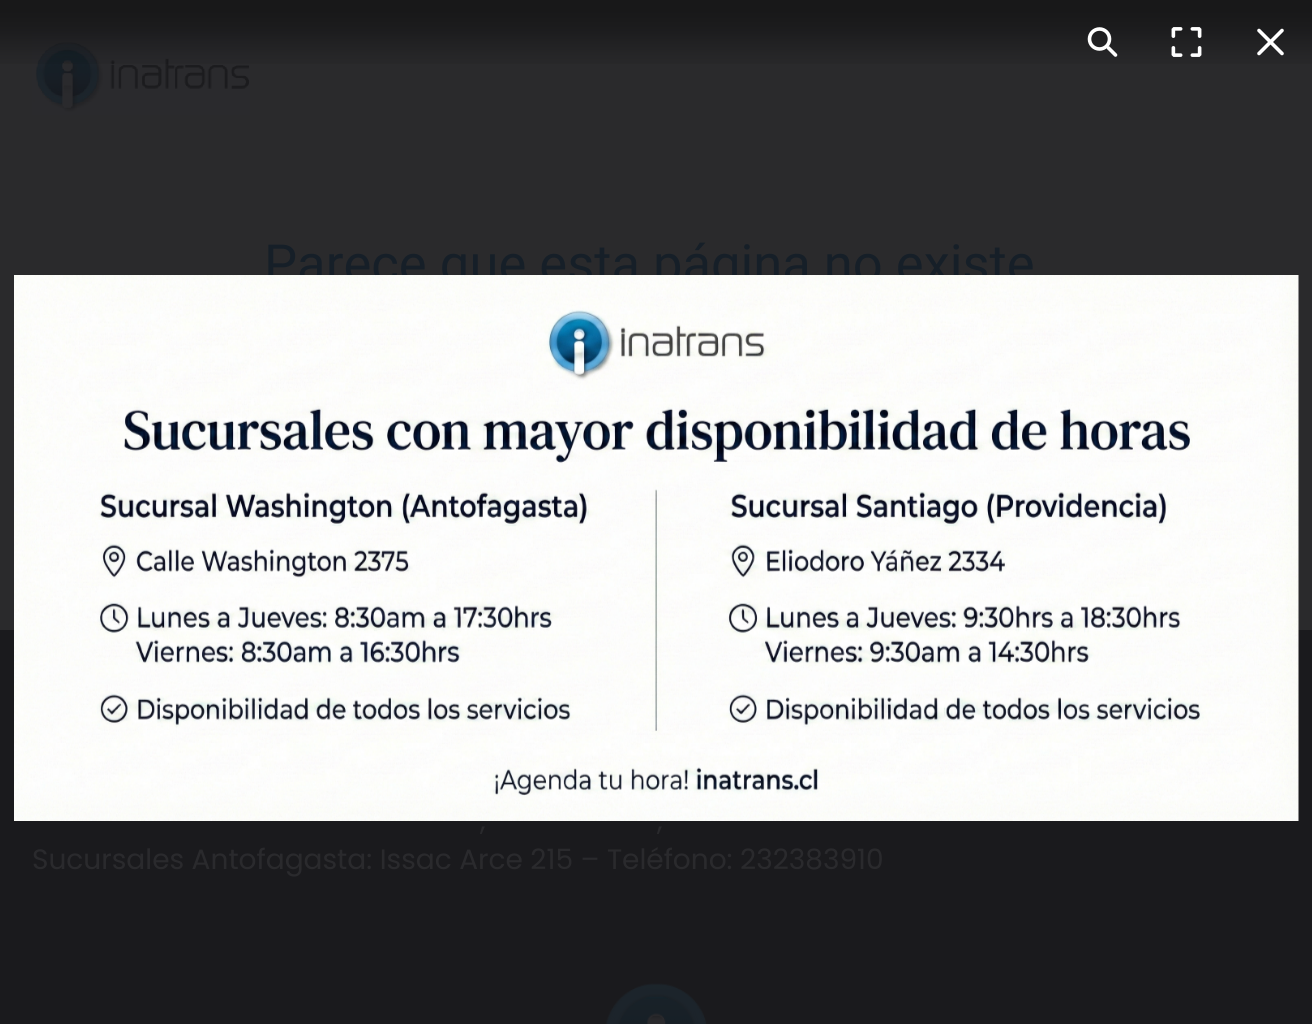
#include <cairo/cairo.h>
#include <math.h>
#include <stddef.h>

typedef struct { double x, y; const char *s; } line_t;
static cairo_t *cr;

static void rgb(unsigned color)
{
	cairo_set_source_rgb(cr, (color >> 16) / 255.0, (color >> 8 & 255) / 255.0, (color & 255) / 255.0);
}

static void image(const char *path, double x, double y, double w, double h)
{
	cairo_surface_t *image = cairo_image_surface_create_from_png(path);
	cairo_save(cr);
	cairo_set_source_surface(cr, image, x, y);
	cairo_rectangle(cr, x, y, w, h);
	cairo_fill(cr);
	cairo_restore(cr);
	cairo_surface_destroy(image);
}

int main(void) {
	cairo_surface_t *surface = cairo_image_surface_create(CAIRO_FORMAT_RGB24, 1312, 1024);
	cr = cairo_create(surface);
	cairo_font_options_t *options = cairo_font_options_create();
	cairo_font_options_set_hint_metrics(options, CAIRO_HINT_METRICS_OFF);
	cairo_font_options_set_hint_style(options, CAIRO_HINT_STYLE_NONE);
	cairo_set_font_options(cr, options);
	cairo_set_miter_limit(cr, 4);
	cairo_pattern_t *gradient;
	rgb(0x2a2a2c);
	cairo_paint(cr);
	image("img/3.png", 32, 32, 218, 83);
	gradient = cairo_pattern_create_linear(656, 84, 656, 0);
	cairo_pattern_add_color_stop_rgba(gradient, 0, 0, 0, 0, 0);
	cairo_pattern_add_color_stop_rgba(gradient, 0.08, 0, 0, 0, 0.01);
	cairo_pattern_add_color_stop_rgba(gradient, 0.15, 0, 0, 0, 0.02);
	cairo_pattern_add_color_stop_rgba(gradient, 0.23, 0, 0, 0, 0.05);
	cairo_pattern_add_color_stop_rgba(gradient, 0.29, 0, 0, 0, 0.08);
	cairo_pattern_add_color_stop_rgba(gradient, 0.35, 0, 0, 0, 0.11);
	cairo_pattern_add_color_stop_rgba(gradient, 0.41, 0, 0, 0, 0.16);
	cairo_pattern_add_color_stop_rgba(gradient, 0.47, 0, 0, 0, 0.2);
	cairo_pattern_add_color_stop_rgba(gradient, 0.53, 0, 0, 0, 0.24);
	cairo_pattern_add_color_stop_rgba(gradient, 0.59, 0, 0, 0, 0.29);
	cairo_pattern_add_color_stop_rgba(gradient, 0.65, 0, 0, 0, 0.33);
	cairo_pattern_add_color_stop_rgba(gradient, 0.71, 0, 0, 0, 0.36);
	cairo_pattern_add_color_stop_rgba(gradient, 0.78, 0, 0, 0, 0.39);
	cairo_pattern_add_color_stop_rgba(gradient, 0.85, 0, 0, 0, 0.42);
	cairo_pattern_add_color_stop_rgba(gradient, 0.92, 0, 0, 0, 0.43);
	cairo_pattern_add_color_stop_rgba(gradient, 1, 0, 0, 0, 0.44);
	cairo_set_source(cr, gradient);
	cairo_pattern_destroy(gradient);
	cairo_rectangle(cr, 0, 0, 1312, 64);
	cairo_fill(cr);
	cairo_arc(cr, 1099.5, 39, 10, 0, 2 * M_PI);
	rgb(0xffffff);
	cairo_set_line_width(cr, 3.6);
	cairo_stroke(cr);
	cairo_new_path(cr);
	cairo_move_to(cr, 1108.5, 48);
	cairo_line_to(cr, 1115.5, 55);
	cairo_set_line_cap(cr, CAIRO_LINE_CAP_ROUND);
	cairo_set_line_join(cr, CAIRO_LINE_JOIN_BEVEL);
	cairo_stroke(cr);
	image("img/1.png", 1171, 27, 31, 30);
	cairo_new_path(cr);
	cairo_move_to(cr, 1282, 53.5);
	cairo_line_to(cr, 1259, 30.5);
	cairo_move_to(cr, 1282, 30.5);
	cairo_line_to(cr, 1259, 53.5);
	cairo_stroke(cr);
	rgb(0x1a1a1d);
	cairo_rectangle(cr, 0, 630, 1312, 394);
	cairo_fill(cr);
	image("img/4.png", 605, 983, 103, 41);
	cairo_select_font_face(cr, "Roboto", CAIRO_FONT_SLANT_NORMAL, CAIRO_FONT_WEIGHT_NORMAL);
	cairo_set_font_size(cr, 52.5);
	rgb(0x161f28);
	cairo_move_to(cr, 264, 282);
	cairo_show_text(cr, "Parece que esta página no existe");
	image("img/2.png", 14, 275, 1285, 546);
	cairo_select_font_face(cr, "Poppins", CAIRO_FONT_SLANT_NORMAL, CAIRO_FONT_WEIGHT_NORMAL);
	cairo_set_font_size(cr, 28);
	rgb(0x2a2a2d);
	{
		static const line_t items[] = {
			{480, 830, ","},
			{657, 830, ","},
			{32, 869, "Sucursales Antofagasta: Issac Arce 215 – Teléfono: 232383910"},
		};
		for (size_t i = 0; i < sizeof items / sizeof *items; i++) {
			cairo_move_to(cr, items[i].x, items[i].y);
			cairo_show_text(cr, items[i].s);
		}
	}
	cairo_surface_write_to_png(surface, "page.png");
	cairo_font_options_destroy(options);
	cairo_destroy(cr);
	cairo_surface_destroy(surface);
	return 0;
}
